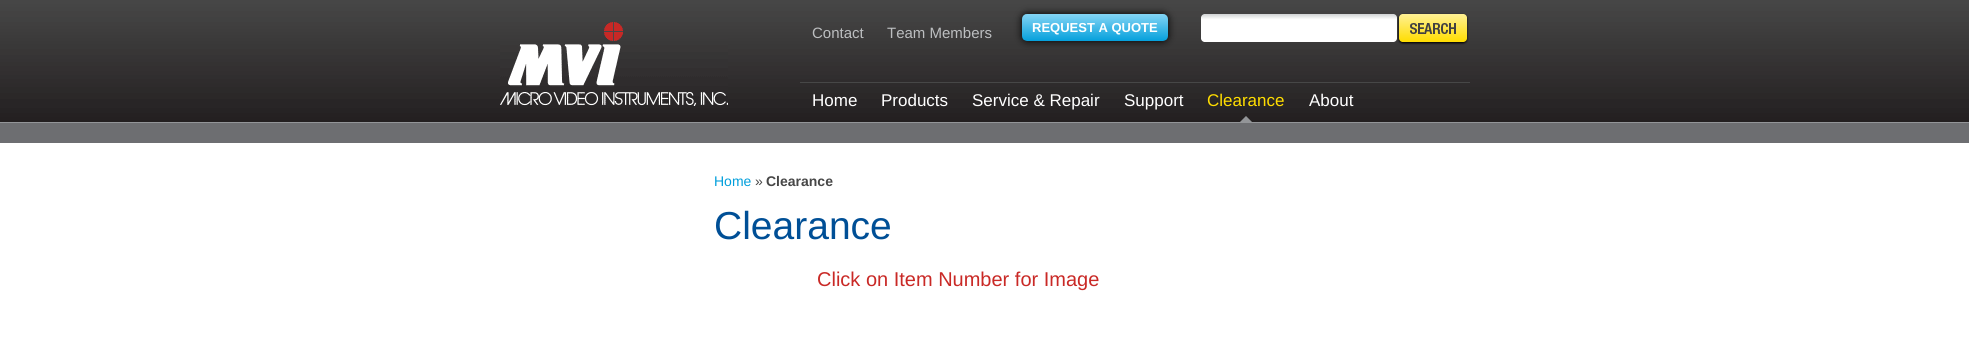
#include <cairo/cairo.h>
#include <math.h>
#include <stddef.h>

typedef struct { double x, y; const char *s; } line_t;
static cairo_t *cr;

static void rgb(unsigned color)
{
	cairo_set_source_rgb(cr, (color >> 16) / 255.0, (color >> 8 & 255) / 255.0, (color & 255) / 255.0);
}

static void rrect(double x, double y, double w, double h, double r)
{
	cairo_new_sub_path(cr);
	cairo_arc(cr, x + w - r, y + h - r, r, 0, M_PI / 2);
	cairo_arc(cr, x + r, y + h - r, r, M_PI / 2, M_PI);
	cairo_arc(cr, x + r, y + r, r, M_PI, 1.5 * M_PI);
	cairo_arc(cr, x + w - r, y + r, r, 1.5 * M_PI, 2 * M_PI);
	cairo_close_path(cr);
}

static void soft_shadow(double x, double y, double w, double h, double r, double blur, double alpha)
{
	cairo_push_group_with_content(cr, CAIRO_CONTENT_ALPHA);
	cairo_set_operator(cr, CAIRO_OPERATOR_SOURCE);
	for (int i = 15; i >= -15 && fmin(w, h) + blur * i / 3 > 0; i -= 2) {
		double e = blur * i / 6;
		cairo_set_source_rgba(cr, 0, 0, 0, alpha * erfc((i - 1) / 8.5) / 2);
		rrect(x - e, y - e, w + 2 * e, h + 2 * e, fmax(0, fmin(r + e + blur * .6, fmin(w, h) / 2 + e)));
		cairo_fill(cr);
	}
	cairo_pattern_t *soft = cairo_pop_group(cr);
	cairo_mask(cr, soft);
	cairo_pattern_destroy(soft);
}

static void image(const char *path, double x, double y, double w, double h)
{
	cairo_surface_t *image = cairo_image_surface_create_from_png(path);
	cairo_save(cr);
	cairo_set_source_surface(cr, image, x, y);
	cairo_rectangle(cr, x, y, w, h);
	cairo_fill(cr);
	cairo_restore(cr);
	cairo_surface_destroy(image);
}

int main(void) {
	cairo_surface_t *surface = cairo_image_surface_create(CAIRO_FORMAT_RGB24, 1969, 346);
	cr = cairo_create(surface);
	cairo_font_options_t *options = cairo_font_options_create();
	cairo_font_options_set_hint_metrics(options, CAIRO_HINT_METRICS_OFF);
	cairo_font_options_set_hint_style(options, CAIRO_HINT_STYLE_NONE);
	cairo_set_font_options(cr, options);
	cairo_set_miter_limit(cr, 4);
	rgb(0xffffff);
	cairo_paint(cr);
	image("img/1.png", 0, 0, 1969, 122);
	image("img/2.png", 500, 22, 228, 84);
	rgb(0x000000);
	soft_shadow(1022, 14, 146, 27, 5, 4, 1);
	image("img/3.png", 1022, 14, 146, 27);
	image("img/4.png", 1201, 14, 196, 28);
	image("img/5.png", 1397, 13, 72, 32);
	rgb(0x474747);
	cairo_rectangle(cr, 800, 82, 670, 1);
	cairo_fill(cr);
	image("img/6.png", 1240, 116, 12, 6);
	rgb(0x6d6e71);
	cairo_rectangle(cr, 0, 123, 1969, 20);
	cairo_fill(cr);
	rgb(0x939598);
	cairo_rectangle(cr, 0, 122, 1969, 1);
	cairo_fill(cr);
	cairo_select_font_face(cr, "Liberation Sans", CAIRO_FONT_SLANT_NORMAL, CAIRO_FONT_WEIGHT_NORMAL);
	cairo_set_font_size(cr, 15);
	rgb(0xbcbec0);
	cairo_move_to(cr, 812, 38);
	cairo_show_text(cr, "Contact");
	cairo_move_to(cr, 887, 38);
	cairo_show_text(cr, "Team Members");
	cairo_select_font_face(cr, "Liberation Sans", CAIRO_FONT_SLANT_NORMAL, CAIRO_FONT_WEIGHT_BOLD);
	cairo_set_font_size(cr, 13);
	rgb(0xffffff);
	cairo_move_to(cr, 1032, 32);
	cairo_show_text(cr, "REQUEST A QUOTE");
	cairo_select_font_face(cr, "Liberation Sans", CAIRO_FONT_SLANT_NORMAL, CAIRO_FONT_WEIGHT_NORMAL);
	cairo_set_font_size(cr, 17);
	{
		static const line_t items[] = {
			{812, 106, "Home"},
			{881, 106, "Products"},
			{972, 106, "Service & Repair"},
			{1124, 106, "Support"},
		};
		for (size_t i = 0; i < sizeof items / sizeof *items; i++) {
			cairo_move_to(cr, items[i].x, items[i].y);
			cairo_show_text(cr, items[i].s);
		}
	}
	rgb(0xffdd00);
	cairo_move_to(cr, 1207, 106);
	cairo_show_text(cr, "Clearance");
	rgb(0xffffff);
	cairo_move_to(cr, 1309, 106);
	cairo_show_text(cr, "About");
	cairo_set_font_size(cr, 14);
	rgb(0x009edb);
	cairo_move_to(cr, 714, 186);
	cairo_show_text(cr, "Home");
	rgb(0x474747);
	cairo_move_to(cr, 755, 186);
	cairo_show_text(cr, "»");
	cairo_select_font_face(cr, "Liberation Sans", CAIRO_FONT_SLANT_NORMAL, CAIRO_FONT_WEIGHT_BOLD);
	cairo_move_to(cr, 766, 186);
	cairo_show_text(cr, "Clearance");
	cairo_select_font_face(cr, "Liberation Sans", CAIRO_FONT_SLANT_NORMAL, CAIRO_FONT_WEIGHT_NORMAL);
	cairo_set_font_size(cr, 39);
	rgb(0x004f96);
	cairo_move_to(cr, 714, 239);
	cairo_show_text(cr, "Clearance");
	cairo_set_font_size(cr, 20);
	rgb(0xc92926);
	cairo_move_to(cr, 817, 286);
	cairo_show_text(cr, "Click on Item Number for Image");
	cairo_surface_write_to_png(surface, "page.png");
	cairo_font_options_destroy(options);
	cairo_destroy(cr);
	cairo_surface_destroy(surface);
	return 0;
}
